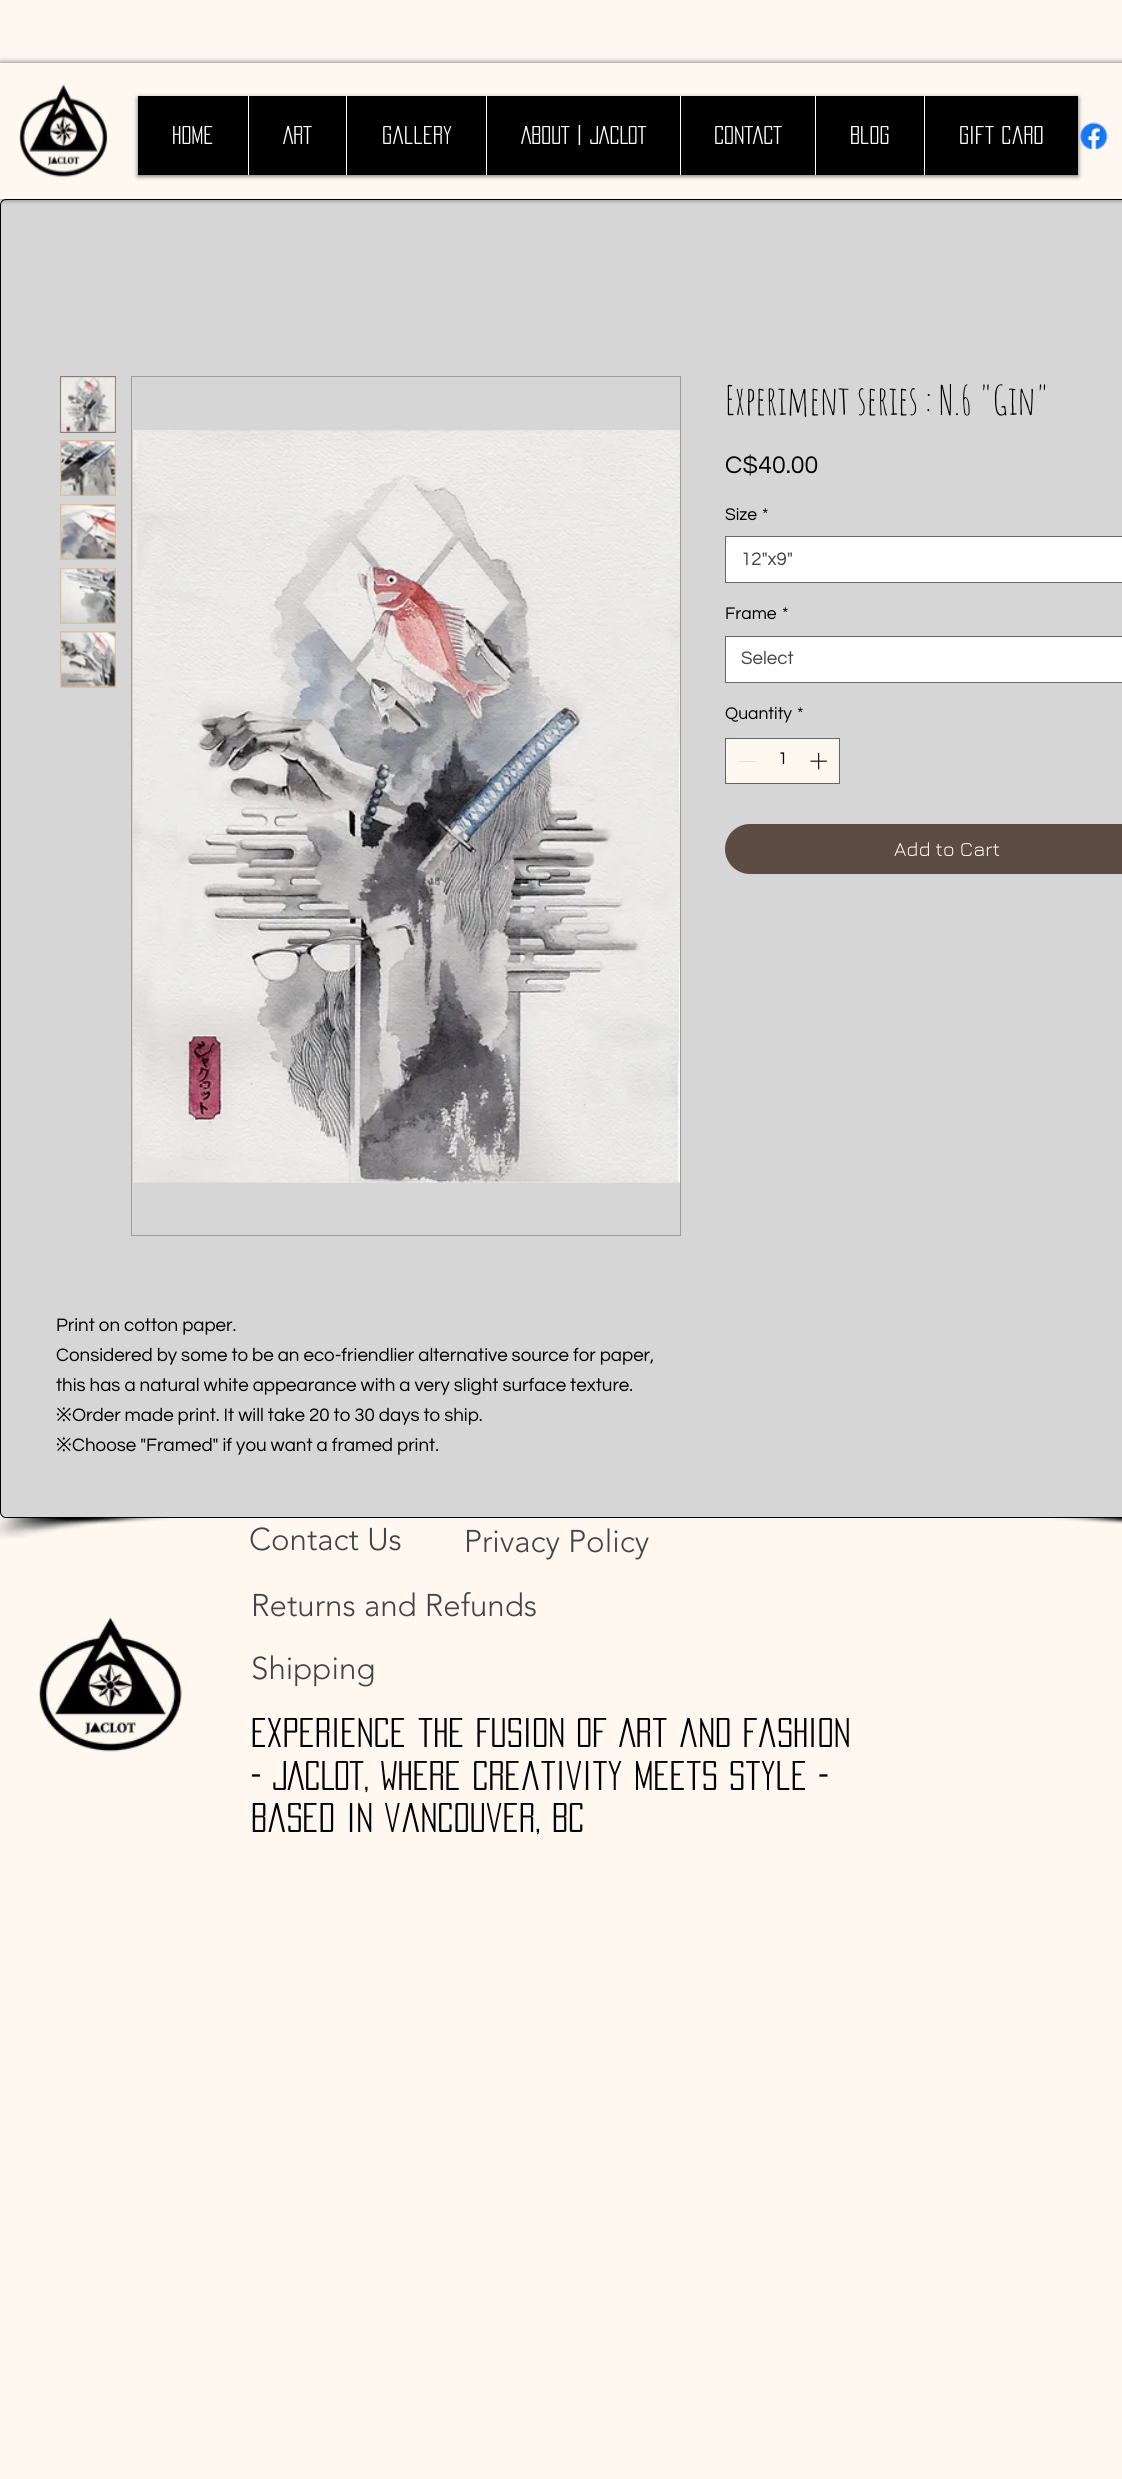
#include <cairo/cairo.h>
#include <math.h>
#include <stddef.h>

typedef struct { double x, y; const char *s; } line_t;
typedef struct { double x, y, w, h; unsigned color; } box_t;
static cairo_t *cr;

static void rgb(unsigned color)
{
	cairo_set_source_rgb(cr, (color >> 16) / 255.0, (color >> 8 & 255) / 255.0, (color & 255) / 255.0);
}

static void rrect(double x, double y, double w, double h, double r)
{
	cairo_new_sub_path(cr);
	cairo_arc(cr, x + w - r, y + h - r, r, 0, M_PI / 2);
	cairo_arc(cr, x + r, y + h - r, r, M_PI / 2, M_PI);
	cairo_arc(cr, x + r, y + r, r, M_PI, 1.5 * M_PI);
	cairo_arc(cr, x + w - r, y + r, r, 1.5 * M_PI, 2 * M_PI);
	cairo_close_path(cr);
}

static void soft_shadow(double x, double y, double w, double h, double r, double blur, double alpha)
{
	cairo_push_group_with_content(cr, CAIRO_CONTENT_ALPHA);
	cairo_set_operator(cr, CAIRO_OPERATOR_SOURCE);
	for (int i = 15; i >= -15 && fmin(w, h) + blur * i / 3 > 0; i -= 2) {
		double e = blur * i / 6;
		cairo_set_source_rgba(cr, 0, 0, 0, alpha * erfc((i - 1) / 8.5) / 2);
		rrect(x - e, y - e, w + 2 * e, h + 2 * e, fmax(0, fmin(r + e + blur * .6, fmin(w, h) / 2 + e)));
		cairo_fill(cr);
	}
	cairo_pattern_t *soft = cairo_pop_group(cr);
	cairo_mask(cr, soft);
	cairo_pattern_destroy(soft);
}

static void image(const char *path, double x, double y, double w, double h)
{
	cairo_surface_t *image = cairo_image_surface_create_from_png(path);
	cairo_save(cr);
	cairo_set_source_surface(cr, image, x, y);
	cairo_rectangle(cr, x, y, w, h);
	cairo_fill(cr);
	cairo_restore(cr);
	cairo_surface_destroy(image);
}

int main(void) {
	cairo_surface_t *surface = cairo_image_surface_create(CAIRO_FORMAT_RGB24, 1122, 2479);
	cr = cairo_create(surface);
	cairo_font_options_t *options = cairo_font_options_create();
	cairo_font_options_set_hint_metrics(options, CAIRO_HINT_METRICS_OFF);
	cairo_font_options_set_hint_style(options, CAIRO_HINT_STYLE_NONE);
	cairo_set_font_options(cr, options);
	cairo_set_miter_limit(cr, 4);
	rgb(0xfff8f1);
	cairo_paint(cr);
	rgb(0xd6d6d6);
	rrect(0.5, 199.5, 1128, 1318, 5.5);
	cairo_fill_preserve(cr);
	rgb(0x000000);
	cairo_set_line_width(cr, 1);
	cairo_stroke(cr);
	rgb(0x000000);
	soft_shadow(0, 63, 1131, 136, 0, 3, 0.61);
	rgb(0xfff8f1);
	cairo_rectangle(cr, 0, 63, 1122, 136);
	cairo_fill(cr);
	image("img/1.png", 19, 84, 89, 94);
	rgb(0x000000);
	soft_shadow(138, 98, 940, 78, 0, 2.5, 0.6);
	{
		static const box_t items[] = {
			{138, 96, 940, 79, 0x000000},
			{248, 96, 1, 79, 0xffffff},
			{346, 96, 1, 79, 0xffffff},
			{486, 96, 1, 79, 0xffffff},
			{680, 96, 1, 79, 0xffffff},
			{815, 96, 1, 79, 0xffffff},
			{924, 96, 1, 79, 0xffffff},
		};
		for (size_t i = 0; i < sizeof items / sizeof *items; i++) {
			rgb(items[i].color);
			cairo_rectangle(cr, items[i].x, items[i].y, items[i].w, items[i].h);
			cairo_fill(cr);
		}
	}
	image("img/2.png", 1079, 122, 29, 29);
	image("img/3.png", 0, 1517, 175, 22);
	image("img/4.png", 1050, 1518, 72, 6);
	cairo_rectangle(cr, 725.5, 536.5, 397, 46);
	cairo_fill_preserve(cr);
	rgb(0x666666);
	cairo_stroke(cr);
	rgb(0xffffff);
	cairo_rectangle(cr, 725.5, 636.5, 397, 46);
	cairo_fill_preserve(cr);
	rgb(0x666666);
	cairo_stroke(cr);
	rgb(0xfff8f1);
	cairo_rectangle(cr, 725.5, 738.5, 114, 45);
	cairo_fill_preserve(cr);
	rgb(0x666360);
	cairo_stroke(cr);
	rgb(0xe3e0dc);
	cairo_rectangle(cr, 739, 761, 17, 1);
	cairo_fill(cr);
	image("img/5.png", 810, 752, 17, 18);
	rgb(0x5b4d43);
	rrect(725, 824, 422, 50, 25);
	cairo_fill(cr);
	rgb(0xe0be9a);
	cairo_rectangle(cr, 60.5, 376.5, 55, 56);
	cairo_fill_preserve(cr);
	rgb(0x808080);
	cairo_stroke(cr);
	image("img/6.png", 61, 377, 55, 55);
	rgb(0xe0be9a);
	cairo_rectangle(cr, 60, 440, 56, 56);
	cairo_fill(cr);
	image("img/7.png", 61, 441, 55, 55);
	cairo_rectangle(cr, 60, 504, 56, 56);
	cairo_fill(cr);
	image("img/8.png", 61, 504, 55, 56);
	cairo_rectangle(cr, 60, 568, 56, 56);
	cairo_fill(cr);
	image("img/9.png", 61, 568, 55, 55);
	cairo_rectangle(cr, 60, 631, 56, 57);
	cairo_fill(cr);
	image("img/10.png", 61, 632, 55, 55);
	cairo_rectangle(cr, 131.5, 376.5, 549, 859);
	rgb(0x9c9c9c);
	cairo_stroke(cr);
	image("img/11.png", 133, 430, 547, 753);
	image("img/12.png", 38, 1617, 144, 135);
	cairo_select_font_face(cr, "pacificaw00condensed", CAIRO_FONT_SLANT_NORMAL, CAIRO_FONT_WEIGHT_NORMAL);
	cairo_set_font_size(cr, 22.5);
	rgb(0xffffff);
	{
		static const line_t items[] = {
			{172, 144, "HOME"},
			{283, 144, "ART"},
			{382, 144, "Gallery"},
			{521, 144, "ABOUT | JACLOT"},
			{714, 144, "CONTACT"},
			{850, 144, "Blog"},
			{959, 144, "Gift Card"},
		};
		for (size_t i = 0; i < sizeof items / sizeof *items; i++) {
			cairo_move_to(cr, items[i].x, items[i].y);
			cairo_show_text(cr, items[i].s);
		}
	}
	cairo_select_font_face(cr, "Amatic SC", CAIRO_FONT_SLANT_NORMAL, CAIRO_FONT_WEIGHT_NORMAL);
	cairo_set_font_size(cr, 40);
	rgb(0x000000);
	cairo_move_to(cr, 725, 415);
	cairo_show_text(cr, "Experiment series : N.6 \"Gin\"");
	cairo_select_font_face(cr, "Questrial", CAIRO_FONT_SLANT_NORMAL, CAIRO_FONT_WEIGHT_NORMAL);
	cairo_set_font_size(cr, 25);
	cairo_move_to(cr, 725, 473);
	cairo_show_text(cr, "C$40.00");
	cairo_set_font_size(cr, 17.5);
	cairo_move_to(cr, 725, 520);
	cairo_show_text(cr, "Size");
	cairo_move_to(cr, 762, 520);
	cairo_show_text(cr, "*");
	cairo_set_font_size(cr, 18.75);
	rgb(0x444444);
	cairo_move_to(cr, 741, 565);
	cairo_show_text(cr, "12\"x9\"");
	cairo_set_font_size(cr, 17.5);
	rgb(0x000000);
	cairo_move_to(cr, 725, 619);
	cairo_show_text(cr, "Frame");
	cairo_move_to(cr, 782, 619);
	cairo_show_text(cr, "*");
	cairo_set_font_size(cr, 18.75);
	rgb(0x444444);
	cairo_move_to(cr, 741, 664);
	cairo_show_text(cr, "Select");
	cairo_set_font_size(cr, 17.5);
	rgb(0x000000);
	{
		static const line_t items[] = {
			{725, 719, "Quantity"},
			{797, 719, "*"},
			{778, 764, "1"},
		};
		for (size_t i = 0; i < sizeof items / sizeof *items; i++) {
			cairo_move_to(cr, items[i].x, items[i].y);
			cairo_show_text(cr, items[i].s);
		}
	}
	cairo_select_font_face(cr, "Jura", CAIRO_FONT_SLANT_NORMAL, CAIRO_FONT_WEIGHT_NORMAL);
	cairo_set_font_size(cr, 20);
	rgb(0xfff8f1);
	cairo_move_to(cr, 894, 856);
	cairo_show_text(cr, "Add to Cart");
	cairo_select_font_face(cr, "Questrial", CAIRO_FONT_SLANT_NORMAL, CAIRO_FONT_WEIGHT_NORMAL);
	cairo_set_font_size(cr, 18.75);
	rgb(0x000000);
	{
		static const line_t items[] = {
			{56, 1331, "Print on cotton paper."},
			{56, 1361, "Considered by some to be an eco-friendlier alternative source for paper,"},
			{56, 1391, "this has a natural white appearance with a very slight surface texture."},
		};
		for (size_t i = 0; i < sizeof items / sizeof *items; i++) {
			cairo_move_to(cr, items[i].x, items[i].y);
			cairo_show_text(cr, items[i].s);
		}
	}
	cairo_select_font_face(cr, "Noto Sans", CAIRO_FONT_SLANT_NORMAL, CAIRO_FONT_WEIGHT_NORMAL);
	cairo_move_to(cr, 56, 1421);
	cairo_show_text(cr, "※");
	cairo_select_font_face(cr, "Questrial", CAIRO_FONT_SLANT_NORMAL, CAIRO_FONT_WEIGHT_NORMAL);
	cairo_move_to(cr, 72, 1421);
	cairo_show_text(cr, "Order made print. It will take 20 to 30 days to ship.");
	cairo_select_font_face(cr, "Noto Sans", CAIRO_FONT_SLANT_NORMAL, CAIRO_FONT_WEIGHT_NORMAL);
	cairo_move_to(cr, 56, 1451);
	cairo_show_text(cr, "※");
	cairo_select_font_face(cr, "Questrial", CAIRO_FONT_SLANT_NORMAL, CAIRO_FONT_WEIGHT_NORMAL);
	cairo_move_to(cr, 72, 1451);
	cairo_show_text(cr, "Choose \"Framed\" if you want a framed print.");
	cairo_select_font_face(cr, "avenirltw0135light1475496 Light", CAIRO_FONT_SLANT_NORMAL, CAIRO_FONT_WEIGHT_NORMAL);
	cairo_set_font_size(cr, 31.25);
	rgb(0x444444);
	{
		static const line_t items[] = {
			{249, 1550, "Contact Us"},
			{464, 1552, "Privacy Policy"},
			{251, 1616, "Returns and Refunds"},
			{251, 1679, "Shipping"},
		};
		for (size_t i = 0; i < sizeof items / sizeof *items; i++) {
			cairo_move_to(cr, items[i].x, items[i].y);
			cairo_show_text(cr, items[i].s);
		}
	}
	cairo_select_font_face(cr, "pacificaw00condensed", CAIRO_FONT_SLANT_NORMAL, CAIRO_FONT_WEIGHT_NORMAL);
	cairo_set_font_size(cr, 36.25);
	rgb(0x000000);
	{
		static const line_t items[] = {
			{251, 1747, "Experience the Fusion of Art and Fashion"},
			{251, 1790, "- JACLOT, Where Creativity Meets Style -"},
			{251, 1832, "Based in vancouver, BC"},
		};
		for (size_t i = 0; i < sizeof items / sizeof *items; i++) {
			cairo_move_to(cr, items[i].x, items[i].y);
			cairo_show_text(cr, items[i].s);
		}
	}
	cairo_surface_write_to_png(surface, "page.png");
	cairo_font_options_destroy(options);
	cairo_destroy(cr);
	cairo_surface_destroy(surface);
	return 0;
}
